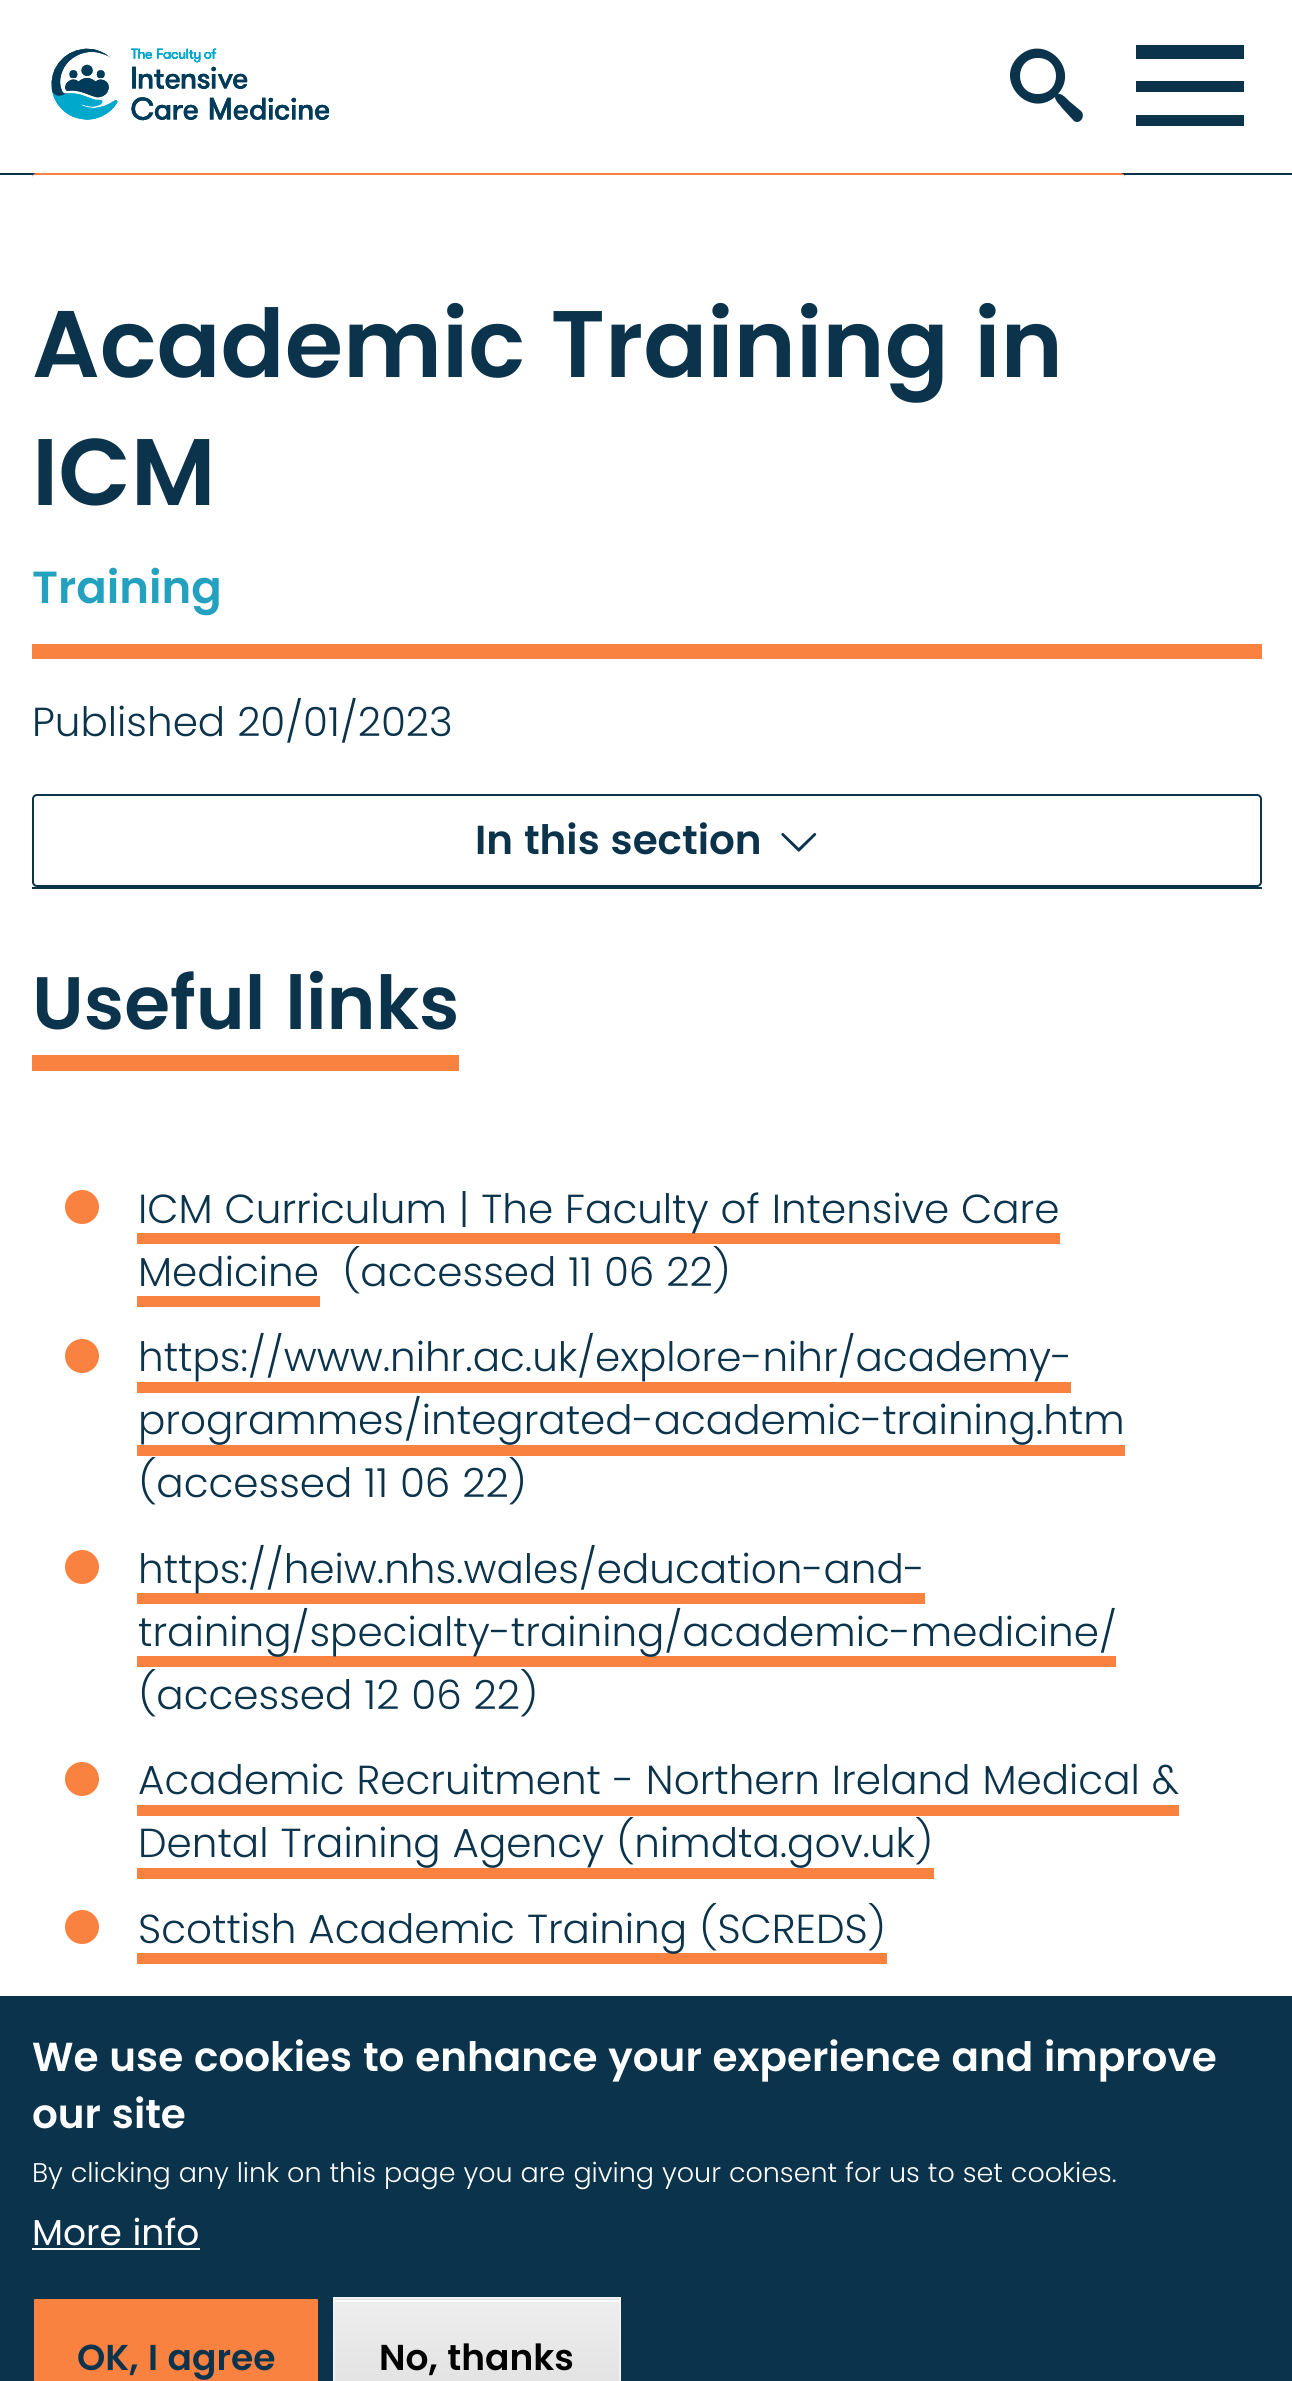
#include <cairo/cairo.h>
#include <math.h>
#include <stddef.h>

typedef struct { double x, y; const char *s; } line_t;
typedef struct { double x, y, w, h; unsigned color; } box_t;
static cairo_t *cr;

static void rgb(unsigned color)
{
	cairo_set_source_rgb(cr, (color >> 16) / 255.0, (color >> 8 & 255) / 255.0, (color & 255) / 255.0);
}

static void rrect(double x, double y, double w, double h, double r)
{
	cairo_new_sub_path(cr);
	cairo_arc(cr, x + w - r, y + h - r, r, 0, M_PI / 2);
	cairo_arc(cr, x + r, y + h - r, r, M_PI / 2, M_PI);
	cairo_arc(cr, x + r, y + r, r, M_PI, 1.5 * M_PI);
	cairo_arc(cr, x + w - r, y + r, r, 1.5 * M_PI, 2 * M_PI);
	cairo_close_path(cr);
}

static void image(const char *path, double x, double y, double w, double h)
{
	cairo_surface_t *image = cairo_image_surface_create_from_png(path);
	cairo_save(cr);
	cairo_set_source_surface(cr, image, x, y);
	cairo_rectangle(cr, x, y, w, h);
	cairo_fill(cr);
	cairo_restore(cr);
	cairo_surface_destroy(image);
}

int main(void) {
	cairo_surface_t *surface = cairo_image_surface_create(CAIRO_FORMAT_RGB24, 1292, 2381);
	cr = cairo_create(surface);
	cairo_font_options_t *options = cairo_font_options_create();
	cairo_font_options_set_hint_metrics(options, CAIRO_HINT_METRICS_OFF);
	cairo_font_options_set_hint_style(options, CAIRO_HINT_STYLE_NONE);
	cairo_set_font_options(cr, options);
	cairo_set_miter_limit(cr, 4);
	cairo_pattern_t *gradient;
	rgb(0xffffff);
	cairo_paint(cr);
	image("img/1.png", 51, 48, 279, 73);
	rgb(0x0b344c);
	cairo_new_path(cr);
	cairo_move_to(cr, 1081, 111);
	cairo_line_to(cr, 1069, 101);
	cairo_curve_to(cr, 1067, 99, 1062, 93, 1058, 94);
	cairo_curve_to(cr, 1081, 68, 1043, 32, 1018, 57);
	cairo_curve_to(cr, 994, 81, 1029, 119, 1055, 97);
	cairo_curve_to(cr, 1055, 101, 1061, 106, 1062, 108);
	cairo_line_to(cr, 1074, 121);
	cairo_curve_to(cr, 1080, 125, 1086, 116, 1081, 111);
	cairo_close_path(cr);
	cairo_move_to(cr, 1038, 94);
	cairo_curve_to(cr, 1014, 94, 1014, 58, 1038, 58);
	cairo_curve_to(cr, 1062, 58, 1062, 94, 1038, 94);
	cairo_close_path(cr);
	cairo_fill(cr);
	{
		static const box_t items[] = {
			{1136, 45, 108, 14, 0x0b344c},
			{1136, 81, 108, 11, 0x0b344c},
			{1136, 115, 108, 11, 0x0b344c},
			{0, 173, 1292, 2, 0x0b344c},
		};
		for (size_t i = 0; i < sizeof items / sizeof *items; i++) {
			rgb(items[i].color);
			cairo_rectangle(cr, items[i].x, items[i].y, items[i].w, items[i].h);
			cairo_fill(cr);
		}
	}
	rgb(0xfa8240);
	cairo_new_path(cr);
	cairo_move_to(cr, 37, 173);
	cairo_line_to(cr, 1120, 173);
	cairo_curve_to(cr, 1123, 173, 1125, 175, 1125, 178);
	cairo_line_to(cr, 1125, 175);
	cairo_line_to(cr, 32, 175);
	cairo_line_to(cr, 32, 178);
	cairo_curve_to(cr, 32, 175, 34, 173, 37, 173);
	cairo_close_path(cr);
	cairo_fill(cr);
	cairo_rectangle(cr, 32, 644, 1230, 15);
	cairo_fill(cr);
	rgb(0x0b344c);
	cairo_rectangle(cr, 32, 887, 1230, 2);
	cairo_fill(cr);
	rrect(33, 795, 1228, 91, 4);
	cairo_stroke(cr);
	image("img/2.png", 781, 833, 36, 19);
	rgb(0xfa8240);
	cairo_rectangle(cr, 32, 1055, 427, 16);
	cairo_fill(cr);
	cairo_arc(cr, 82, 1207, 17, 0, 2 * M_PI);
	cairo_fill(cr);
	cairo_rectangle(cr, 137, 1233, 923, 11);
	cairo_fill(cr);
	cairo_rectangle(cr, 137, 1296, 183, 11);
	cairo_fill(cr);
	cairo_arc(cr, 82, 1356, 17, 0, 2 * M_PI);
	cairo_fill(cr);
	cairo_rectangle(cr, 137, 1382, 934, 11);
	cairo_fill(cr);
	cairo_rectangle(cr, 137, 1445, 988, 11);
	cairo_fill(cr);
	cairo_arc(cr, 82, 1567, 17, 0, 2 * M_PI);
	cairo_fill(cr);
	cairo_rectangle(cr, 137, 1593, 788, 11);
	cairo_fill(cr);
	cairo_rectangle(cr, 137, 1656, 979, 11);
	cairo_fill(cr);
	cairo_arc(cr, 82, 1779, 17, 0, 2 * M_PI);
	cairo_fill(cr);
	cairo_rectangle(cr, 137, 1805, 1042, 11);
	cairo_fill(cr);
	cairo_rectangle(cr, 137, 1868, 797, 11);
	cairo_fill(cr);
	cairo_arc(cr, 82, 1927, 17, 0, 2 * M_PI);
	cairo_fill(cr);
	{
		static const box_t items[] = {
			{137, 1953, 750, 11, 0xfa8240},
			{0, 1996, 1292, 385, 0x0b344c},
			{32, 2248, 168, 2, 0xffffff},
		};
		for (size_t i = 0; i < sizeof items / sizeof *items; i++) {
			rgb(items[i].color);
			cairo_rectangle(cr, items[i].x, items[i].y, items[i].w, items[i].h);
			cairo_fill(cr);
		}
	}
	rgb(0xfa8240);
	rrect(33, 2298, 286, 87, 2);
	cairo_fill_preserve(cr);
	rgb(0x0b344c);
	cairo_stroke(cr);
	gradient = cairo_pattern_create_linear(477, 2185, 477, 2300);
	cairo_pattern_add_color_stop_rgba(gradient, 0.05, 0.929, 0.929, 0.929, 1);
	cairo_pattern_add_color_stop_rgba(gradient, 1, 0.875, 0.875, 0.875, 1);
	cairo_set_source(cr, gradient);
	cairo_pattern_destroy(gradient);
	cairo_rectangle(cr, 333, 2299, 288, 1);
	cairo_fill(cr);
	gradient = cairo_pattern_create_linear(477, 2300, 477, 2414);
	cairo_pattern_add_color_stop_rgba(gradient, 0.05, 0.929, 0.929, 0.929, 1);
	cairo_pattern_add_color_stop_rgba(gradient, 1, 0.875, 0.875, 0.875, 1);
	cairo_set_source(cr, gradient);
	cairo_pattern_destroy(gradient);
	cairo_rectangle(cr, 335, 2302, 284, 79);
	cairo_fill(cr);
	rgb(0xffffff);
	cairo_rectangle(cr, 335, 2300, 284, 2);
	cairo_fill(cr);
	cairo_rectangle(cr, 334, 2298, 286, 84);
	rgb(0xf1f1f1);
	cairo_stroke(cr);
	cairo_select_font_face(cr, "Poppins SemiBold", CAIRO_FONT_SLANT_NORMAL, CAIRO_FONT_WEIGHT_NORMAL);
	cairo_set_font_size(cr, 94.5);
	rgb(0x0b344c);
	cairo_move_to(cr, 32, 377);
	cairo_show_text(cr, "Academic Training in");
	cairo_move_to(cr, 32, 505);
	cairo_show_text(cr, "ICM");
	cairo_set_font_size(cr, 45);
	rgb(0x24a1bf);
	cairo_move_to(cr, 32, 603);
	cairo_show_text(cr, "Training");
	cairo_select_font_face(cr, "Poppins Light", CAIRO_FONT_SLANT_NORMAL, CAIRO_FONT_WEIGHT_NORMAL);
	cairo_set_font_size(cr, 40.5);
	rgb(0x0b344c);
	cairo_move_to(cr, 32, 736);
	cairo_show_text(cr, "Published 20/01/2023");
	cairo_select_font_face(cr, "Poppins SemiBold", CAIRO_FONT_SLANT_NORMAL, CAIRO_FONT_WEIGHT_NORMAL);
	cairo_move_to(cr, 475, 854);
	cairo_show_text(cr, "In this section");
	cairo_set_font_size(cr, 74.25);
	cairo_move_to(cr, 32, 1029);
	cairo_show_text(cr, "Useful links");
	cairo_select_font_face(cr, "Poppins Light", CAIRO_FONT_SLANT_NORMAL, CAIRO_FONT_WEIGHT_NORMAL);
	cairo_set_font_size(cr, 40.5);
	{
		static const line_t items[] = {
			{138, 1223, "ICM Curriculum | The Faculty of Intensive Care"},
			{138, 1286, "Medicine"},
			{342, 1286, "(accessed 11 06 22)"},
			{138, 1371, "https://www.nihr.ac.uk/explore-nihr/academy-"},
			{138, 1434, "programmes/integrated-academic-training.htm"},
			{138, 1497, "(accessed 11 06 22)"},
			{138, 1583, "https://heiw.nhs.wales/education-and-"},
			{138, 1646, "training/specialty-training/academic-medicine/"},
			{138, 1709, "(accessed 12 06 22)"},
			{138, 1794, "Academic Recruitment - Northern Ireland Medical &"},
			{138, 1857, "Dental Training Agency (nimdta.gov.uk)"},
			{138, 1943, "Scottish Academic Training (SCREDS)"},
		};
		for (size_t i = 0; i < sizeof items / sizeof *items; i++) {
			cairo_move_to(cr, items[i].x, items[i].y);
			cairo_show_text(cr, items[i].s);
		}
	}
	cairo_select_font_face(cr, "Poppins SemiBold", CAIRO_FONT_SLANT_NORMAL, CAIRO_FONT_WEIGHT_NORMAL);
	rgb(0xffffff);
	cairo_move_to(cr, 32, 2071);
	cairo_show_text(cr, "We use cookies to enhance your experience and improve");
	cairo_move_to(cr, 32, 2128);
	cairo_show_text(cr, "our site");
	cairo_select_font_face(cr, "Poppins Light", CAIRO_FONT_SLANT_NORMAL, CAIRO_FONT_WEIGHT_NORMAL);
	cairo_set_font_size(cr, 27);
	cairo_move_to(cr, 32, 2182);
	cairo_show_text(cr, "By clicking any link on this page you are giving your consent for us to set cookies.");
	cairo_select_font_face(cr, "Poppins", CAIRO_FONT_SLANT_NORMAL, CAIRO_FONT_WEIGHT_NORMAL);
	cairo_set_font_size(cr, 36);
	cairo_move_to(cr, 32, 2245);
	cairo_show_text(cr, "More info");
	cairo_select_font_face(cr, "Poppins SemiBold", CAIRO_FONT_SLANT_NORMAL, CAIRO_FONT_WEIGHT_NORMAL);
	rgb(0x0b344c);
	cairo_move_to(cr, 77, 2370);
	cairo_show_text(cr, "OK, I agree");
	rgb(0x000000);
	cairo_move_to(cr, 379, 2370);
	cairo_show_text(cr, "No, thanks");
	cairo_surface_write_to_png(surface, "page.png");
	cairo_font_options_destroy(options);
	cairo_destroy(cr);
	cairo_surface_destroy(surface);
	return 0;
}
